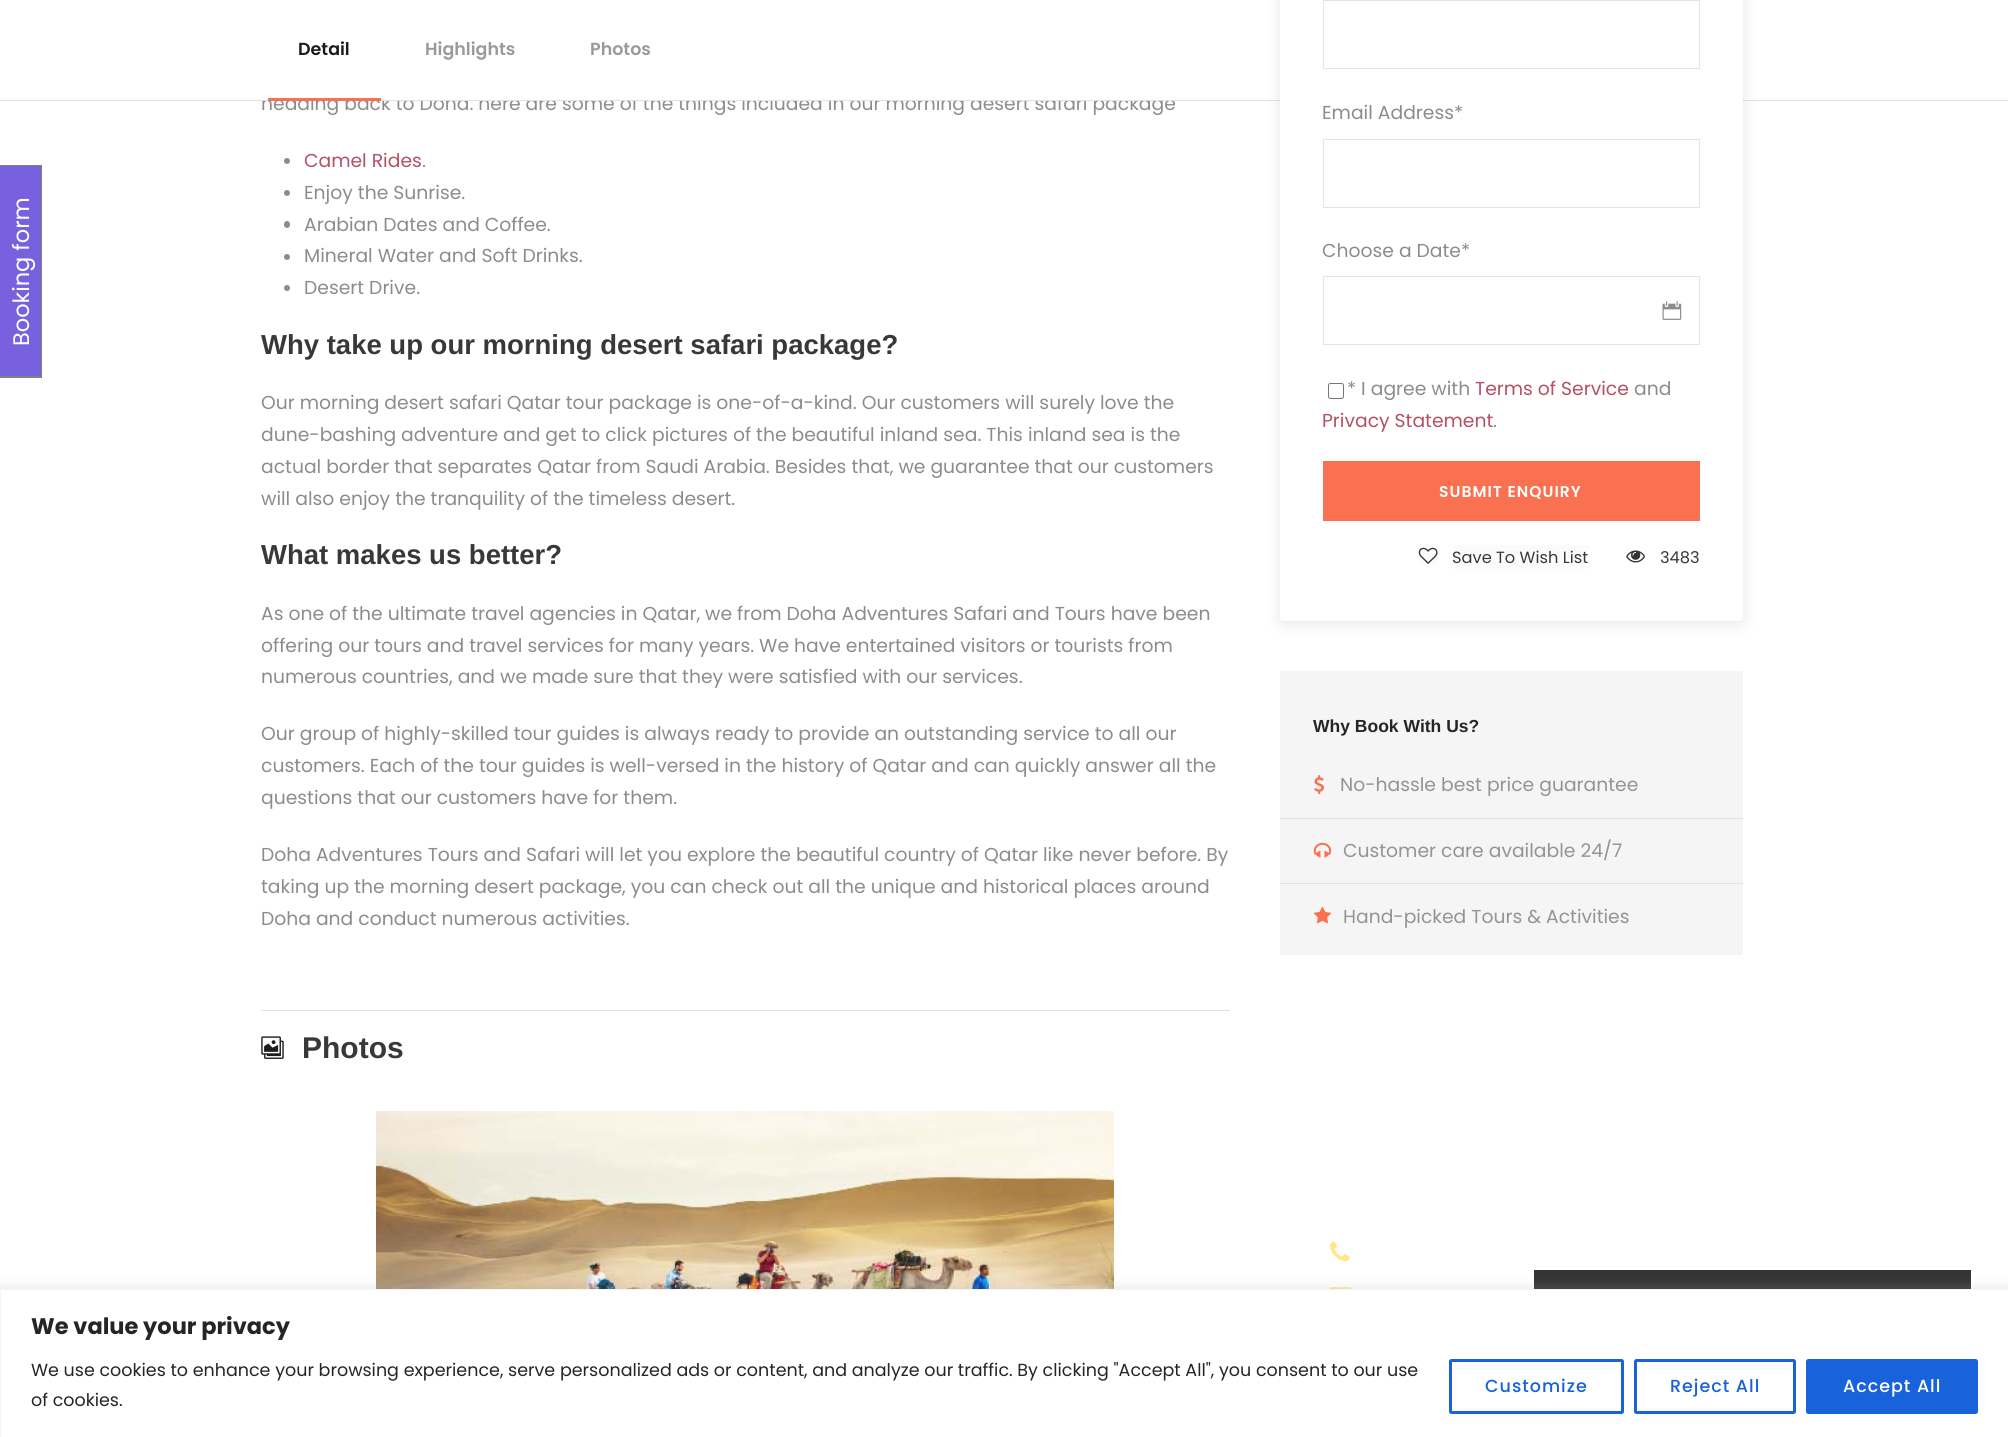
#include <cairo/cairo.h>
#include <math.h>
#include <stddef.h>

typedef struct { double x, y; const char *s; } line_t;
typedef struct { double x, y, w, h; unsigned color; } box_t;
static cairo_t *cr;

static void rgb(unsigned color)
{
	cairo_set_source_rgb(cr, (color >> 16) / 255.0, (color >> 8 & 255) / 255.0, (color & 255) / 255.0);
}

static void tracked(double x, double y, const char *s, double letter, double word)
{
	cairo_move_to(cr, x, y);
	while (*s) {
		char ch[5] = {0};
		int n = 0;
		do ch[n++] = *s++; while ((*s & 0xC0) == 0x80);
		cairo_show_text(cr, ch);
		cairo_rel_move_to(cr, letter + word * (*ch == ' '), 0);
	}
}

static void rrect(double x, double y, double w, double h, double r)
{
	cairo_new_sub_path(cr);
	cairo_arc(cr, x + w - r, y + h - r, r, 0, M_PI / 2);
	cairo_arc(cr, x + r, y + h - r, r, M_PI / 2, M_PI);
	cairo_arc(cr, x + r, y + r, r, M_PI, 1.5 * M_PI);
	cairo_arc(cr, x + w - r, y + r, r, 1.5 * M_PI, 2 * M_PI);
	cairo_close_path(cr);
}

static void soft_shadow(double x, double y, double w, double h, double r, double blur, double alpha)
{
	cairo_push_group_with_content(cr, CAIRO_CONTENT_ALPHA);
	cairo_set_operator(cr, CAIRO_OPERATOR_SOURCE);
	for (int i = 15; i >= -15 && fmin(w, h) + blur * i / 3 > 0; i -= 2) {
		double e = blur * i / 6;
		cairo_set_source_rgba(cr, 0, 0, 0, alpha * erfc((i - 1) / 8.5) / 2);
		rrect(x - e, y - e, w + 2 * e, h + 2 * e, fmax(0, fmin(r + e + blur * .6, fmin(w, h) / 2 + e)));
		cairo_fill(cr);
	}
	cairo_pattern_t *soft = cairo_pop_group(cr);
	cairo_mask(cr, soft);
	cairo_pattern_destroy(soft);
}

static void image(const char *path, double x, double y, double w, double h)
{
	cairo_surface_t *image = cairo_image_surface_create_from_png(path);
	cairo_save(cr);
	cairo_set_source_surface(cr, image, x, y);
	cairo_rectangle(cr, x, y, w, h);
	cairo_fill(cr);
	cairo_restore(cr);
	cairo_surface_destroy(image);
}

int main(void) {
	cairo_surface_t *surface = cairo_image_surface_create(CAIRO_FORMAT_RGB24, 2008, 1437);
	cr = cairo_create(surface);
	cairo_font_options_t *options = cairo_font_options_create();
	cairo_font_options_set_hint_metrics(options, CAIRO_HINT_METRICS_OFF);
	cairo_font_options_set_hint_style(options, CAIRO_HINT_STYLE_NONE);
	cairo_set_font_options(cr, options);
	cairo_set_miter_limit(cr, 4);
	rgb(0xffffff);
	cairo_paint(cr);
	{
		static const box_t items[] = {
			{0, 166, 41, 210, 0x7761df},
			{0, 165, 42, 1, 0x7f7f7f},
			{41, 165, 1, 213, 0x7f7f7f},
			{0, 376, 42, 2, 0x7f7f7f},
		};
		for (size_t i = 0; i < sizeof items / sizeof *items; i++) {
			rgb(items[i].color);
			cairo_rectangle(cr, items[i].x, items[i].y, items[i].w, items[i].h);
			cairo_fill(cr);
		}
	}
	rgb(0x8c8c8c);
	cairo_arc(cr, 287, 161, 3, 0, 2 * M_PI);
	cairo_fill(cr);
	cairo_arc(cr, 287, 193, 3, 0, 2 * M_PI);
	cairo_fill(cr);
	rrect(284, 221, 6, 7, 3);
	cairo_fill(cr);
	cairo_arc(cr, 287, 257, 3, 0, 2 * M_PI);
	cairo_fill(cr);
	cairo_arc(cr, 287, 288, 3, 0, 2 * M_PI);
	cairo_fill(cr);
	rgb(0xe1e1e1);
	cairo_rectangle(cr, 261, 1010, 969, 1);
	cairo_fill(cr);
	image("img/1.png", 261, 1036, 23, 23);
	image("img/2.png", 376, 1111, 738, 178);
	rgb(0xf5f5f5);
	cairo_rectangle(cr, 1280, 671, 463, 284);
	cairo_fill(cr);
	image("img/6.png", 1314, 775, 10, 19);
	rgb(0xe1e1e1);
	cairo_rectangle(cr, 1280, 818, 463, 1);
	cairo_fill(cr);
	image("img/7.png", 1313, 842, 19, 16);
	cairo_rectangle(cr, 1280, 883, 463, 1);
	cairo_fill(cr);
	image("img/8.png", 1313, 906, 19, 18);
	image("img/9.png", 1330, 1241, 20, 21);
	image("img/10.png", 1330, 1287, 22, 2);
	rgb(0x343434);
	cairo_rectangle(cr, 1534, 1270, 437, 19);
	cairo_fill(cr);
	rgb(0xacabab);
	soft_shadow(0, 1288, 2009, 148, 0, 6, 0.3);
	rgb(0xffffff);
	cairo_rectangle(cr, 0.5, 1289.5, 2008, 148);
	cairo_fill_preserve(cr);
	rgb(0xf4f4f4);
	cairo_set_line_width(cr, 1);
	cairo_stroke(cr);
	rrect(1450.5, 1360.5, 172, 52, 1);
	rgb(0x1863dc);
	cairo_set_line_width(cr, 3);
	cairo_stroke(cr);
	rrect(1635.5, 1360.5, 159, 52, 1);
	cairo_stroke(cr);
	rrect(1807.5, 1360.5, 169, 52, 1);
	cairo_fill_preserve(cr);
	cairo_stroke(cr);
	cairo_select_font_face(cr, "Poppins", CAIRO_FONT_SLANT_NORMAL, CAIRO_FONT_WEIGHT_NORMAL);
	cairo_set_font_size(cr, 22.5);
	rgb(0xffffff);
	cairo_save(cr);
	cairo_translate(cr, 29, 346);
	cairo_rotate(cr, -90 * M_PI / 180);
	cairo_move_to(cr, 0, 0);
	cairo_show_text(cr, "Booking form");
	cairo_restore(cr);
	cairo_select_font_face(cr, "Poppins SemiBold", CAIRO_FONT_SLANT_NORMAL, CAIRO_FONT_WEIGHT_NORMAL);
	cairo_set_font_size(cr, 17.5);
	rgb(0x1b1b1b);
	cairo_move_to(cr, 298, 55);
	cairo_show_text(cr, "Detail");
	rgb(0x9a9a9a);
	cairo_move_to(cr, 425, 55);
	cairo_show_text(cr, "Highlights");
	cairo_move_to(cr, 590, 55);
	cairo_show_text(cr, "Photos");
	cairo_select_font_face(cr, "Poppins", CAIRO_FONT_SLANT_NORMAL, CAIRO_FONT_WEIGHT_NORMAL);
	cairo_set_font_size(cr, 18.75);
	rgb(0x8c8c8c);
	cairo_move_to(cr, 261, 110);
	cairo_show_text(cr, "heading back to Doha. here are some of the things included in our morning desert safari package");
	{
		static const box_t items[] = {
			{0, 100, 2008, 1, 0xe1e1e1},
			{262, 95, 910, 5, 0xffffff},
			{268, 98, 113, 3, 0xf97150},
		};
		for (size_t i = 0; i < sizeof items / sizeof *items; i++) {
			rgb(items[i].color);
			cairo_rectangle(cr, items[i].x, items[i].y, items[i].w, items[i].h);
			cairo_fill(cr);
		}
	}
	rgb(0xb55065);
	cairo_move_to(cr, 304, 167);
	cairo_show_text(cr, "Camel Rides");
	rgb(0x8c8c8c);
	{
		static const line_t items[] = {
			{422, 167, "."},
			{304, 199, "Enjoy the Sunrise."},
			{304, 231, "Arabian Dates and Coffee."},
			{304, 262, "Mineral Water and Soft Drinks."},
			{304, 294, "Desert Drive."},
		};
		for (size_t i = 0; i < sizeof items / sizeof *items; i++) {
			cairo_move_to(cr, items[i].x, items[i].y);
			cairo_show_text(cr, items[i].s);
		}
	}
	cairo_select_font_face(cr, "Liberation Sans", CAIRO_FONT_SLANT_NORMAL, CAIRO_FONT_WEIGHT_BOLD);
	cairo_set_font_size(cr, 27.5);
	rgb(0x383838);
	cairo_move_to(cr, 261, 354);
	cairo_show_text(cr, "Why take up our morning desert safari package?");
	cairo_select_font_face(cr, "Poppins", CAIRO_FONT_SLANT_NORMAL, CAIRO_FONT_WEIGHT_NORMAL);
	cairo_set_font_size(cr, 18.75);
	rgb(0x8c8c8c);
	{
		static const line_t items[] = {
			{261, 409, "Our morning desert safari Qatar tour package is one-of-a-kind. Our customers will surely love the"},
			{261, 441, "dune-bashing adventure and get to click pictures of the beautiful inland sea. This inland sea is the"},
			{261, 473, "actual border that separates Qatar from Saudi Arabia. Besides that, we guarantee that our customers"},
			{261, 505, "will also enjoy the tranquility of the timeless desert."},
		};
		for (size_t i = 0; i < sizeof items / sizeof *items; i++) {
			cairo_move_to(cr, items[i].x, items[i].y);
			cairo_show_text(cr, items[i].s);
		}
	}
	cairo_select_font_face(cr, "Liberation Sans", CAIRO_FONT_SLANT_NORMAL, CAIRO_FONT_WEIGHT_BOLD);
	cairo_set_font_size(cr, 27.5);
	rgb(0x383838);
	cairo_move_to(cr, 261, 564);
	cairo_show_text(cr, "What makes us better?");
	cairo_select_font_face(cr, "Poppins", CAIRO_FONT_SLANT_NORMAL, CAIRO_FONT_WEIGHT_NORMAL);
	cairo_set_font_size(cr, 18.75);
	rgb(0x8c8c8c);
	{
		static const line_t items[] = {
			{261, 620, "As one of the ultimate travel agencies in Qatar, we from Doha Adventures Safari and Tours have been"},
			{261, 652, "offering our tours and travel services for many years. We have entertained visitors or tourists from"},
			{261, 683, "numerous countries, and we made sure that they were satisfied with our services."},
			{261, 740, "Our group of highly-skilled tour guides is always ready to provide an outstanding service to all our"},
			{261, 772, "customers. Each of the tour guides is well-versed in the history of Qatar and can quickly answer all the"},
			{261, 804, "questions that our customers have for them."},
			{261, 861, "Doha Adventures Tours and Safari will let you explore the beautiful country of Qatar like never before. By"},
			{261, 893, "taking up the morning desert package, you can check out all the unique and historical places around"},
			{261, 925, "Doha and conduct numerous activities."},
		};
		for (size_t i = 0; i < sizeof items / sizeof *items; i++) {
			cairo_move_to(cr, items[i].x, items[i].y);
			cairo_show_text(cr, items[i].s);
		}
	}
	cairo_select_font_face(cr, "Liberation Sans", CAIRO_FONT_SLANT_NORMAL, CAIRO_FONT_WEIGHT_BOLD);
	cairo_set_font_size(cr, 30);
	rgb(0x383838);
	cairo_move_to(cr, 302, 1058);
	cairo_show_text(cr, "Photos");
	rgb(0x000000);
	soft_shadow(1280, -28, 463, 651, 4, 8, 0.1);
	rgb(0xffffff);
	rrect(1280, -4, 463, 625, 4);
	cairo_fill(cr);
	cairo_rectangle(cr, 1323.5, 0.5, 376, 68);
	rgb(0xe5e5e5);
	cairo_set_line_width(cr, 1);
	cairo_stroke(cr);
	cairo_select_font_face(cr, "Poppins", CAIRO_FONT_SLANT_NORMAL, CAIRO_FONT_WEIGHT_NORMAL);
	cairo_set_font_size(cr, 18.75);
	rgb(0x8c8c8c);
	cairo_move_to(cr, 1322, 119);
	cairo_show_text(cr, "Email Address*");
	cairo_rectangle(cr, 1323.5, 139.5, 376, 68);
	rgb(0xe5e5e5);
	cairo_stroke(cr);
	rgb(0x8c8c8c);
	cairo_move_to(cr, 1322, 257);
	cairo_show_text(cr, "Choose a Date*");
	cairo_rectangle(cr, 1323.5, 276.5, 376, 68);
	rgb(0xe5e5e5);
	cairo_stroke(cr);
	image("img/3.png", 1662, 301, 20, 19);
	rrect(1328.5, 383.5, 15, 15, 2);
	rgb(0x767676);
	cairo_stroke(cr);
	rgb(0x8c8c8c);
	cairo_move_to(cr, 1347, 395);
	cairo_show_text(cr, "* I agree with");
	rgb(0xb55065);
	cairo_move_to(cr, 1475, 395);
	cairo_show_text(cr, "Terms of Service");
	rgb(0x8c8c8c);
	cairo_move_to(cr, 1634, 395);
	cairo_show_text(cr, "and");
	rgb(0xb55065);
	cairo_move_to(cr, 1322, 427);
	cairo_show_text(cr, "Privacy Statement");
	rgb(0x8c8c8c);
	cairo_move_to(cr, 1493, 427);
	cairo_show_text(cr, ".");
	rgb(0xf97150);
	cairo_rectangle(cr, 1323, 461, 377, 60);
	cairo_fill(cr);
	cairo_select_font_face(cr, "Poppins SemiBold", CAIRO_FONT_SLANT_NORMAL, CAIRO_FONT_WEIGHT_NORMAL);
	cairo_set_font_size(cr, 15.6);
	rgb(0xffffff);
	tracked(1439, 497, "SUBMIT ENQUIRY", 1, 0);
	rgb(0xfbfbfb);
	cairo_rectangle(cr, 1419, 544, 19, 21);
	cairo_fill(cr);
	cairo_rectangle(cr, 1453, 545, 136, 24);
	cairo_fill(cr);
	image("img/4.png", 1418, 547, 20, 17);
	cairo_select_font_face(cr, "Poppins", CAIRO_FONT_SLANT_NORMAL, CAIRO_FONT_WEIGHT_NORMAL);
	cairo_set_font_size(cr, 16.25);
	rgb(0x383838);
	cairo_move_to(cr, 1452, 563);
	cairo_show_text(cr, "Save To Wish List");
	image("img/5.png", 1626, 550, 19, 13);
	cairo_move_to(cr, 1660, 563);
	cairo_show_text(cr, "3483");
	cairo_select_font_face(cr, "Liberation Sans", CAIRO_FONT_SLANT_NORMAL, CAIRO_FONT_WEIGHT_BOLD);
	cairo_set_font_size(cr, 17.5);
	rgb(0x252525);
	cairo_move_to(cr, 1313, 732);
	cairo_show_text(cr, "Why Book With Us?");
	cairo_select_font_face(cr, "Poppins", CAIRO_FONT_SLANT_NORMAL, CAIRO_FONT_WEIGHT_NORMAL);
	cairo_set_font_size(cr, 18.75);
	rgb(0x949494);
	{
		static const line_t items[] = {
			{1340, 791, "No-hassle best price guarantee"},
			{1343, 857, "Customer care available 24/7"},
			{1343, 923, "Hand-picked Tours & Activities"},
		};
		for (size_t i = 0; i < sizeof items / sizeof *items; i++) {
			cairo_move_to(cr, items[i].x, items[i].y);
			cairo_show_text(cr, items[i].s);
		}
	}
	cairo_select_font_face(cr, "Poppins", CAIRO_FONT_SLANT_NORMAL, CAIRO_FONT_WEIGHT_BOLD);
	cairo_set_font_size(cr, 22.5);
	rgb(0x252525);
	cairo_move_to(cr, 31, 1334);
	cairo_show_text(cr, "We value your privacy");
	cairo_select_font_face(cr, "Poppins", CAIRO_FONT_SLANT_NORMAL, CAIRO_FONT_WEIGHT_NORMAL);
	cairo_set_font_size(cr, 17.5);
	cairo_move_to(cr, 31, 1376);
	cairo_show_text(cr, "We use cookies to enhance your browsing experience, serve personalized ads or content, and analyze our traffic. By clicking \"Accept All\", you consent to our use");
	cairo_move_to(cr, 31, 1406);
	cairo_show_text(cr, "of cookies.");
	cairo_select_font_face(cr, "Poppins Medium", CAIRO_FONT_SLANT_NORMAL, CAIRO_FONT_WEIGHT_NORMAL);
	rgb(0x1863dc);
	tracked(1485, 1392, "Customize", 1, 0);
	tracked(1670, 1392, "Reject All", 1, 0);
	rgb(0xffffff);
	tracked(1843, 1392, "Accept All", 1, 0);
	cairo_surface_write_to_png(surface, "page.png");
	cairo_font_options_destroy(options);
	cairo_destroy(cr);
	cairo_surface_destroy(surface);
	return 0;
}
